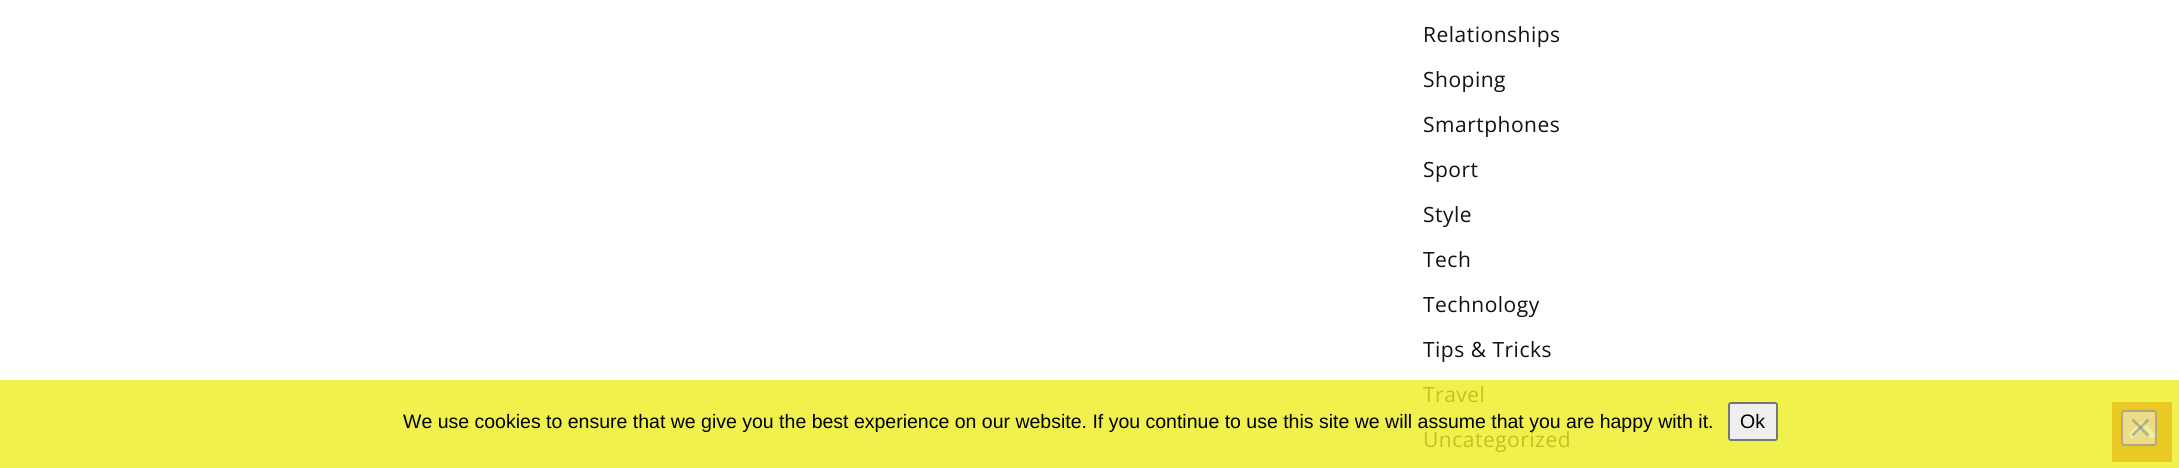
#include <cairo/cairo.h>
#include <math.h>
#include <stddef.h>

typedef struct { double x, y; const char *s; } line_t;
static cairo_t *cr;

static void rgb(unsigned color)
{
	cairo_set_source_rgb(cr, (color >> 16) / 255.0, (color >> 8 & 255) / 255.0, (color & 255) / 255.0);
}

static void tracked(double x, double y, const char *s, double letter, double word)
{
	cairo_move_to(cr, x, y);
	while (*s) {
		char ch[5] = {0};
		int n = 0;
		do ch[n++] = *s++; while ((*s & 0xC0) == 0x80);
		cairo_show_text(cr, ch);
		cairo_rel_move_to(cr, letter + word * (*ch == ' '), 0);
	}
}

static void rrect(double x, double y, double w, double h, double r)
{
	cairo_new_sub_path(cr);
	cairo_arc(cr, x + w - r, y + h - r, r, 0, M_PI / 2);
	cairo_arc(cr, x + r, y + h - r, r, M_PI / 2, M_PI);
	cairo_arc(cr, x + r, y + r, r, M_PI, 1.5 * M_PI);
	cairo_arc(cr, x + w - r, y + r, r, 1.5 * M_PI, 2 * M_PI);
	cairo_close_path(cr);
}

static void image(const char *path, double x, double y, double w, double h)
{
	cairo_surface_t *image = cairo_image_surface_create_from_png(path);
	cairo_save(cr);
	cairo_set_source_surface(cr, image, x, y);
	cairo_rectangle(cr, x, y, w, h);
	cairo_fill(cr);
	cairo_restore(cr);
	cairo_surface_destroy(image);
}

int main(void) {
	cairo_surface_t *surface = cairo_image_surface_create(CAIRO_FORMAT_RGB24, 2179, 468);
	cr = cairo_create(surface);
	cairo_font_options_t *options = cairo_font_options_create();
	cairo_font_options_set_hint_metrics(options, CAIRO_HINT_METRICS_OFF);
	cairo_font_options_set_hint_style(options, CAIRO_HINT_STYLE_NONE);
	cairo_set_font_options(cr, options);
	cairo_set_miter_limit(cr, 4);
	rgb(0xffffff);
	cairo_paint(cr);
	rgb(0xf1f14e);
	cairo_rectangle(cr, 0, 380, 2179, 88);
	cairo_fill(cr);
	rgb(0xebc925);
	cairo_rectangle(cr, 2112, 402, 60, 60);
	cairo_fill(cr);
	image("img/1.png", 2128, 421, 28, 18);
	rgb(0xefefef);
	rrect(1729, 403, 48, 37, 2);
	cairo_fill_preserve(cr);
	rgb(0x767676);
	cairo_stroke(cr);
	cairo_set_source_rgba(cr, 0.937, 0.937, 0.937, 0.5);
	rrect(2121, 410, 36, 36, 3);
	cairo_fill(cr);
	rrect(2122, 411, 34, 34, 2);
	cairo_set_source_rgba(cr, 0.463, 0.463, 0.463, 0.5);
	cairo_stroke(cr);
	cairo_set_source_rgba(cr, 0.502, 0.502, 0.502, 0.5);
	cairo_new_path(cr);
	cairo_move_to(cr, 2147.5, 418.5);
	cairo_line_to(cr, 2149.5, 420.5);
	cairo_line_to(cr, 2133.5, 436.5);
	cairo_line_to(cr, 2131.5, 434.5);
	cairo_close_path(cr);
	cairo_fill(cr);
	cairo_new_path(cr);
	cairo_move_to(cr, 2131.5, 420.5);
	cairo_line_to(cr, 2133.5, 418.5);
	cairo_line_to(cr, 2149.5, 434.5);
	cairo_line_to(cr, 2147.5, 436.5);
	cairo_close_path(cr);
	cairo_fill(cr);
	cairo_select_font_face(cr, "Open Sans", CAIRO_FONT_SLANT_NORMAL, CAIRO_FONT_WEIGHT_NORMAL);
	cairo_set_font_size(cr, 21);
	rgb(0x111111);
	{
		static const line_t items[] = {
			{1423, 42, "Relationships"},
			{1423, 87, "Shoping"},
			{1423, 132, "Smartphones"},
			{1423, 177, "Sport"},
			{1423, 222, "Style"},
			{1423, 267, "Tech"},
			{1423, 312, "Technology"},
			{1423, 357, "Tips & Tricks"},
		};
		for (size_t i = 0; i < sizeof items / sizeof *items; i++) {
			tracked(items[i].x, items[i].y, items[i].s, 0.5, 0);
		}
	}
	rgb(0xc2c21f);
	tracked(1423, 402, "Travel", 0.5, 0);
	tracked(1423, 447, "Uncategorized", 0.5, 0);
	cairo_select_font_face(cr, "Liberation Sans", CAIRO_FONT_SLANT_NORMAL, CAIRO_FONT_WEIGHT_NORMAL);
	cairo_set_font_size(cr, 19.5);
	rgb(0x000000);
	cairo_move_to(cr, 403, 428);
	cairo_show_text(cr, "We use cookies to ensure that we give you the best experience on our website. If you continue to use this site we will assume that you are happy with it.");
	cairo_move_to(cr, 1740, 428);
	cairo_show_text(cr, "Ok");
	cairo_surface_write_to_png(surface, "page.png");
	cairo_font_options_destroy(options);
	cairo_destroy(cr);
	cairo_surface_destroy(surface);
	return 0;
}
